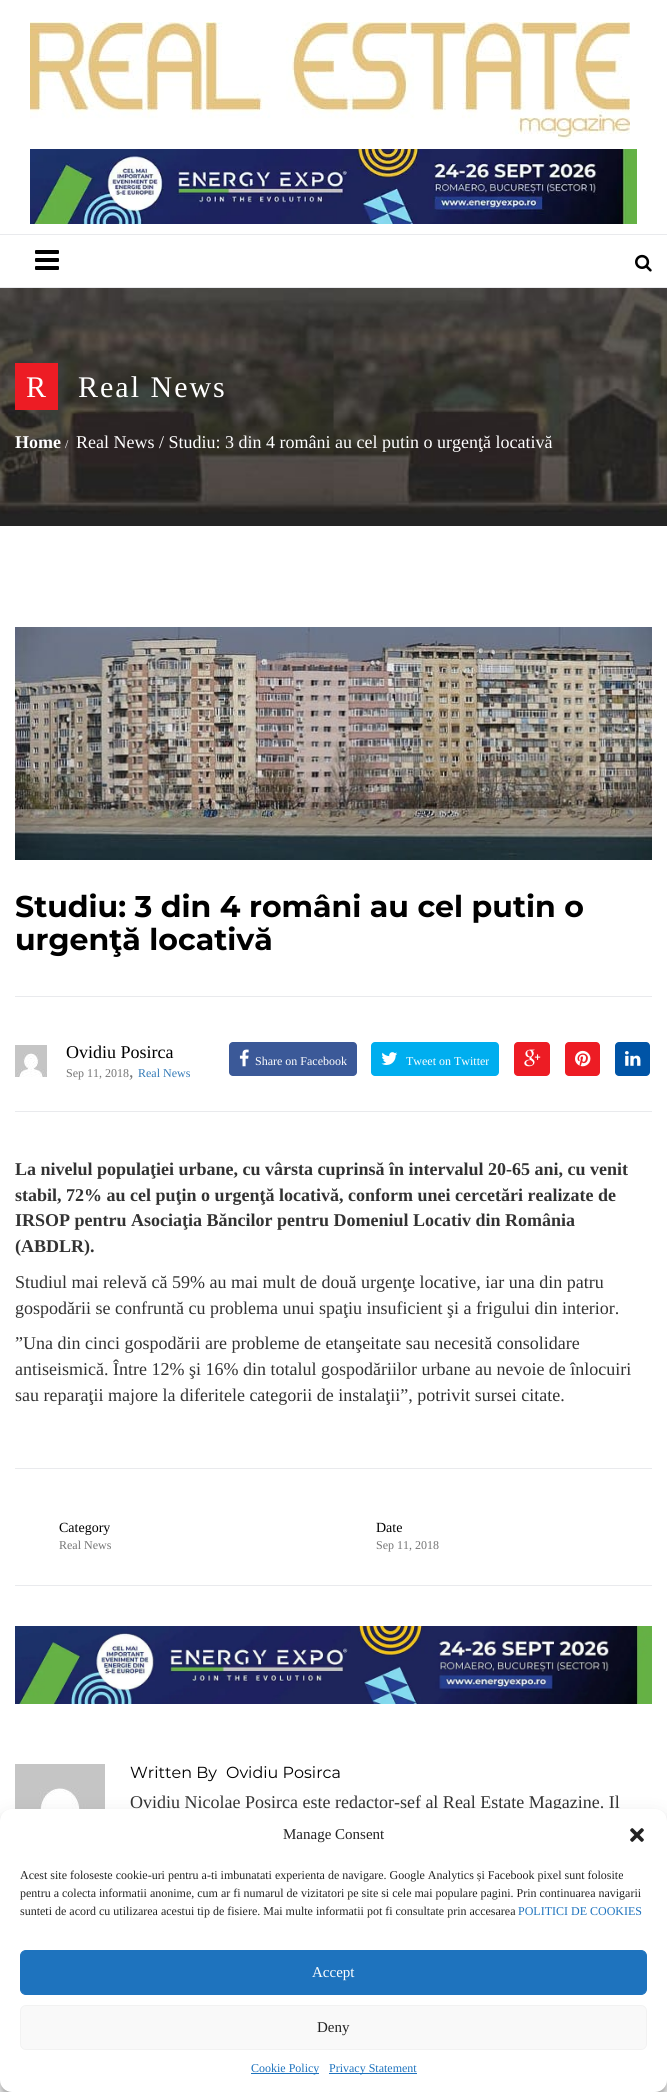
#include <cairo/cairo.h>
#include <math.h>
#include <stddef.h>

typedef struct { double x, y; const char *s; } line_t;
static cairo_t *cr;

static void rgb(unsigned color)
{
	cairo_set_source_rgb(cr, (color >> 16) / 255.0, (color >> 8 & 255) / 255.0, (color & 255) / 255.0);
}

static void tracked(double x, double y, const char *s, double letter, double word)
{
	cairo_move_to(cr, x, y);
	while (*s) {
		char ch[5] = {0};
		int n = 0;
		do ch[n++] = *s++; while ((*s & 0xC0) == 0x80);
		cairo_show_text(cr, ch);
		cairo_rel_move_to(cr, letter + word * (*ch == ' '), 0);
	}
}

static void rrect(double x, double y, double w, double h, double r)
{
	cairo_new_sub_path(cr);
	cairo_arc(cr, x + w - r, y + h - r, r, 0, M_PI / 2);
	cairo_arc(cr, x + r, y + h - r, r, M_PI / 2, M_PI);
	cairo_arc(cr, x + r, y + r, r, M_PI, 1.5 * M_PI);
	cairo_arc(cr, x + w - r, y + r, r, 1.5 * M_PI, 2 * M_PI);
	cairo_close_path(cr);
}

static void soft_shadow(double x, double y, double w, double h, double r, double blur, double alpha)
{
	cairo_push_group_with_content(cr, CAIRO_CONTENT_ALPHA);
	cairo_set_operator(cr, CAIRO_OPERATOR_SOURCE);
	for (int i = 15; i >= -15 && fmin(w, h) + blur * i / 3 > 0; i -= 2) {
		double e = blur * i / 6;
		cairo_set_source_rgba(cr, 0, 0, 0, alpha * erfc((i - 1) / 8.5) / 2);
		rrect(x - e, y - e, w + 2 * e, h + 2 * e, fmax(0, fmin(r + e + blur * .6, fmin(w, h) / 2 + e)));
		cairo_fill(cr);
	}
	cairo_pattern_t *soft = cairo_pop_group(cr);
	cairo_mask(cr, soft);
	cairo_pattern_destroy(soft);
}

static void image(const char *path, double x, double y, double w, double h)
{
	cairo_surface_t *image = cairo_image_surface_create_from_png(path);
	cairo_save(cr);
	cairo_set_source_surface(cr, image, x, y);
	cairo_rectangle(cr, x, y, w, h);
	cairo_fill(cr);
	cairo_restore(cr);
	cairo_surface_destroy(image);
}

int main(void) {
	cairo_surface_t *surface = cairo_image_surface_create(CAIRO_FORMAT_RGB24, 667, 2092);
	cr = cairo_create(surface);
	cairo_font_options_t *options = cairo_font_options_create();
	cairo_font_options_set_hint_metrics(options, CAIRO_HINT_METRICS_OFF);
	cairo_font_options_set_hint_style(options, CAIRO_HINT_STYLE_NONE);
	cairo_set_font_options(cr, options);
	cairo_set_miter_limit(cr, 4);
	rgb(0xffffff);
	cairo_paint(cr);
	rgb(0xe9eaed);
	cairo_rectangle(cr, 0, 234, 667, 1);
	cairo_fill(cr);
	image("img/1.png", 30, 22, 600, 117);
	image("img/2.png", 30, 149, 607, 75);
	cairo_rectangle(cr, 0, 287, 667, 1);
	cairo_fill(cr);
	image("img/3.png", 35, 250, 24, 20);
	image("img/4.png", 635, 254, 17, 18);
	image("img/5.png", 0, 288, 667, 238);
	rgb(0xed1c24);
	cairo_rectangle(cr, 15, 363, 43, 47);
	cairo_fill(cr);
	image("img/6.png", 15, 627, 637, 233);
	rgb(0xe9eaed);
	cairo_rectangle(cr, 15, 996, 637, 1);
	cairo_fill(cr);
	cairo_rectangle(cr, 15, 1111, 637, 1);
	cairo_fill(cr);
	image("img/7.png", 15, 1045, 32, 32);
	rgb(0x3b5998);
	rrect(229, 1042, 128, 34, 4);
	cairo_fill(cr);
	image("img/8.png", 239, 1049, 10, 18);
	rgb(0x00aeef);
	rrect(371, 1042, 128, 34, 4);
	cairo_fill(cr);
	image("img/9.png", 381, 1052, 17, 13);
	rgb(0xed1c24);
	rrect(514, 1042, 36, 34, 4);
	cairo_fill(cr);
	image("img/10.png", 524, 1049, 17, 18);
	rrect(565, 1042, 35, 34, 4);
	cairo_fill(cr);
	image("img/11.png", 575, 1050, 16, 17);
	rgb(0x0054a6);
	rrect(615, 1042, 35, 34, 4);
	cairo_fill(cr);
	image("img/12.png", 625, 1051, 16, 15);
	rgb(0xe9eaed);
	cairo_rectangle(cr, 15, 1468, 637, 1);
	cairo_fill(cr);
	cairo_rectangle(cr, 15, 1585, 637, 1);
	cairo_fill(cr);
	image("img/13.png", 15, 1626, 637, 78);
	image("img/14.png", 15, 1764, 90, 45);
	rgb(0x000000);
	soft_shadow(0, 1815, 667, 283, 12, 3, 0.23);
	soft_shadow(0, 1819, 667, 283, 12, 10, 0.19);
	cairo_select_font_face(cr, "Liberation Serif", CAIRO_FONT_SLANT_NORMAL, CAIRO_FONT_WEIGHT_NORMAL);
	cairo_set_font_size(cr, 30);
	rgb(0xffffff);
	cairo_move_to(cr, 26, 397);
	cairo_show_text(cr, "R");
	tracked(78, 397, "Real News", 2, 0);
	cairo_select_font_face(cr, "Liberation Serif", CAIRO_FONT_SLANT_NORMAL, CAIRO_FONT_WEIGHT_BOLD);
	cairo_set_font_size(cr, 18);
	cairo_move_to(cr, 15, 448);
	cairo_show_text(cr, "Home");
	cairo_select_font_face(cr, "Liberation Serif", CAIRO_FONT_SLANT_NORMAL, CAIRO_FONT_WEIGHT_NORMAL);
	cairo_set_font_size(cr, 12);
	cairo_move_to(cr, 65, 448);
	cairo_show_text(cr, "/");
	cairo_set_font_size(cr, 18);
	cairo_move_to(cr, 76, 448);
	cairo_show_text(cr, "Real News / Studiu: 3 din 4 români au cel putin o urgenţă locativă");
	cairo_select_font_face(cr, "Montserrat", CAIRO_FONT_SLANT_NORMAL, CAIRO_FONT_WEIGHT_BOLD);
	cairo_set_font_size(cr, 30);
	rgb(0x000000);
	cairo_move_to(cr, 15, 917);
	cairo_show_text(cr, "Studiu: 3 din 4 români au cel putin o");
	cairo_move_to(cr, 15, 950);
	cairo_show_text(cr, "urgenţă locativă");
	cairo_select_font_face(cr, "Liberation Serif", CAIRO_FONT_SLANT_NORMAL, CAIRO_FONT_WEIGHT_NORMAL);
	cairo_set_font_size(cr, 18);
	cairo_move_to(cr, 66, 1058);
	cairo_show_text(cr, "Ovidiu Posirca");
	cairo_set_font_size(cr, 12);
	rgb(0x757575);
	cairo_move_to(cr, 66, 1077);
	cairo_show_text(cr, "Sep 11, 2018");
	cairo_set_font_size(cr, 18);
	cairo_move_to(cr, 129, 1077);
	cairo_show_text(cr, ",");
	cairo_set_font_size(cr, 12);
	rgb(0x337ab7);
	cairo_move_to(cr, 138, 1077);
	cairo_show_text(cr, "Real News");
	rgb(0xffffff);
	cairo_move_to(cr, 255, 1065);
	cairo_show_text(cr, "Share on Facebook");
	cairo_move_to(cr, 406, 1065);
	cairo_show_text(cr, "Tweet on Twitter");
	cairo_select_font_face(cr, "Liberation Serif", CAIRO_FONT_SLANT_NORMAL, CAIRO_FONT_WEIGHT_BOLD);
	cairo_set_font_size(cr, 18);
	rgb(0x333333);
	{
		static const line_t items[] = {
			{15, 1175, "La nivelul populaţiei urbane, cu vârsta cuprinsă în intervalul 20-65 ani, cu venit"},
			{15, 1201, "stabil, 72% au cel puţin o urgenţă locativă, conform unei cercetări realizate de"},
			{15, 1226, "IRSOP pentru Asociaţia Băncilor pentru Domeniul Locativ din România"},
			{15, 1252, "(ABDLR)."},
		};
		for (size_t i = 0; i < sizeof items / sizeof *items; i++) {
			cairo_move_to(cr, items[i].x, items[i].y);
			cairo_show_text(cr, items[i].s);
		}
	}
	cairo_select_font_face(cr, "Liberation Serif", CAIRO_FONT_SLANT_NORMAL, CAIRO_FONT_WEIGHT_NORMAL);
	{
		static const line_t items[] = {
			{15, 1288, "Studiul mai relevă că 59% au mai mult de două urgenţe locative, iar una din patru"},
			{15, 1314, "gospodării se confruntă cu problema unui spaţiu insuficient şi a frigului din interior."},
			{15, 1349, "”Una din cinci gospodării are probleme de etanşeitate sau necesită consolidare"},
			{15, 1375, "antiseismică. Între 12% şi 16% din totalul gospodăriilor urbane au nevoie de înlocuiri"},
			{15, 1401, "sau reparaţii majore la diferitele categorii de instalaţii”, potrivit sursei citate."},
		};
		for (size_t i = 0; i < sizeof items / sizeof *items; i++) {
			cairo_move_to(cr, items[i].x, items[i].y);
			cairo_show_text(cr, items[i].s);
		}
	}
	cairo_set_font_size(cr, 14);
	rgb(0x000000);
	cairo_move_to(cr, 59, 1532);
	cairo_show_text(cr, "Category");
	cairo_set_font_size(cr, 12);
	rgb(0x757575);
	cairo_move_to(cr, 59, 1549);
	cairo_show_text(cr, "Real News");
	cairo_set_font_size(cr, 14);
	rgb(0x000000);
	cairo_move_to(cr, 376, 1532);
	cairo_show_text(cr, "Date");
	cairo_set_font_size(cr, 12);
	rgb(0x757575);
	cairo_move_to(cr, 376, 1549);
	cairo_show_text(cr, "Sep 11, 2018");
	cairo_select_font_face(cr, "Montserrat", CAIRO_FONT_SLANT_NORMAL, CAIRO_FONT_WEIGHT_NORMAL);
	cairo_set_font_size(cr, 16);
	rgb(0x000000);
	cairo_move_to(cr, 130, 1778);
	cairo_show_text(cr, "Written By");
	cairo_move_to(cr, 226, 1778);
	cairo_show_text(cr, "Ovidiu Posirca");
	cairo_select_font_face(cr, "Liberation Serif", CAIRO_FONT_SLANT_NORMAL, CAIRO_FONT_WEIGHT_NORMAL);
	cairo_set_font_size(cr, 18);
	rgb(0x333333);
	cairo_move_to(cr, 130, 1808);
	cairo_show_text(cr, "Ovidiu Nicolae Posirca este redactor-sef al Real Estate Magazine. Il");
	rgb(0xffffff);
	rrect(0, 1809, 667, 283, 12);
	cairo_fill(cr);
	cairo_set_font_size(cr, 15);
	rgb(0x222222);
	cairo_move_to(cr, 283, 1839);
	cairo_show_text(cr, "Manage Consent");
	image("img/15.png", 630, 1828, 14, 14);
	cairo_set_font_size(cr, 12);
	{
		static const line_t items[] = {
			{20, 1879, "Acest site foloseste cookie-uri pentru a-ti imbunatati experienta de navigare. Google Analytics și Facebook pixel sunt folosite"},
			{20, 1897, "pentru a colecta informatii anonime, cum ar fi numarul de vizitatori pe site si cele mai populare pagini. Prin continuarea navigarii"},
			{20, 1915, "sunteti de acord cu utilizarea acestui tip de fisiere. Mai multe informatii pot fi consultate prin accesarea"},
		};
		for (size_t i = 0; i < sizeof items / sizeof *items; i++) {
			cairo_move_to(cr, items[i].x, items[i].y);
			cairo_show_text(cr, items[i].s);
		}
	}
	rgb(0x1e73be);
	cairo_move_to(cr, 518, 1915);
	cairo_show_text(cr, "POLITICI DE COOKIES");
	rrect(20.5, 1950.5, 626, 44, 5.5);
	cairo_fill_preserve(cr);
	cairo_set_line_width(cr, 1);
	cairo_stroke(cr);
	cairo_set_font_size(cr, 15);
	rgb(0xffffff);
	cairo_move_to(cr, 312, 1977);
	cairo_show_text(cr, "Accept");
	rgb(0xf9f9f9);
	rrect(20.5, 2005.5, 626, 44, 5.5);
	cairo_fill_preserve(cr);
	rgb(0xf2f2f2);
	cairo_stroke(cr);
	rgb(0x222222);
	cairo_move_to(cr, 317, 2032);
	cairo_show_text(cr, "Deny");
	rgb(0x1e73be);
	cairo_rectangle(cr, 251, 2073, 68, 1);
	cairo_fill(cr);
	cairo_set_font_size(cr, 12);
	cairo_move_to(cr, 251, 2072);
	cairo_show_text(cr, "Cookie Policy");
	cairo_rectangle(cr, 329, 2073, 88, 1);
	cairo_fill(cr);
	cairo_move_to(cr, 329, 2072);
	cairo_show_text(cr, "Privacy Statement");
	cairo_surface_write_to_png(surface, "page.png");
	cairo_font_options_destroy(options);
	cairo_destroy(cr);
	cairo_surface_destroy(surface);
	return 0;
}
